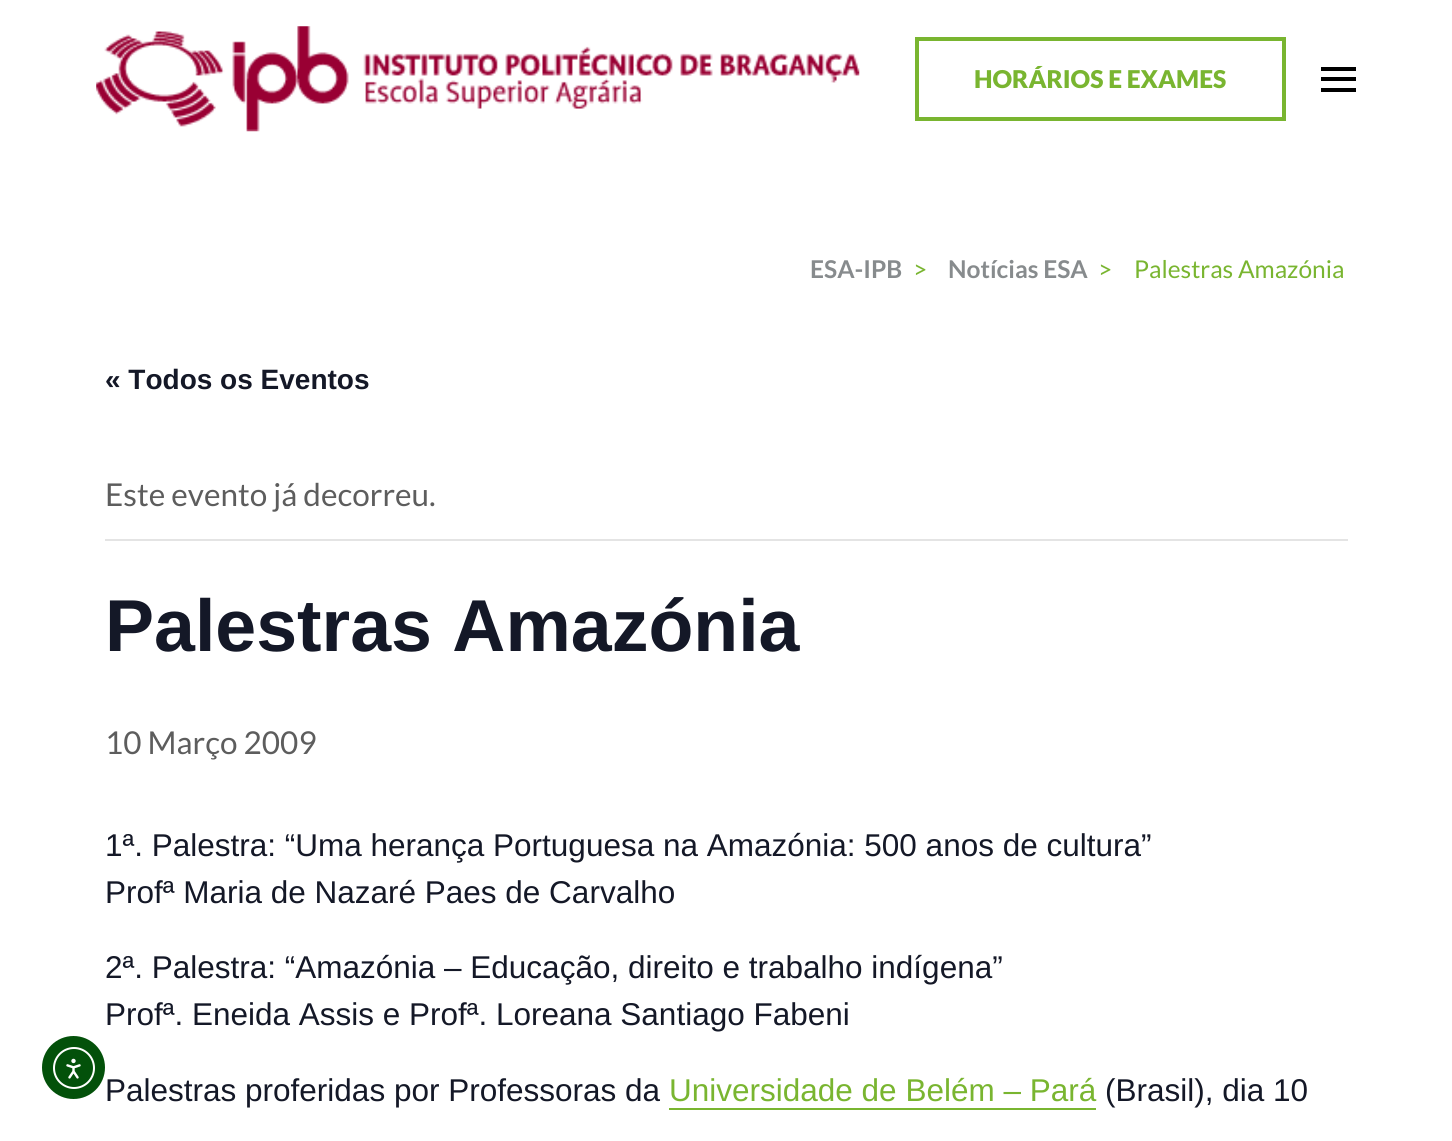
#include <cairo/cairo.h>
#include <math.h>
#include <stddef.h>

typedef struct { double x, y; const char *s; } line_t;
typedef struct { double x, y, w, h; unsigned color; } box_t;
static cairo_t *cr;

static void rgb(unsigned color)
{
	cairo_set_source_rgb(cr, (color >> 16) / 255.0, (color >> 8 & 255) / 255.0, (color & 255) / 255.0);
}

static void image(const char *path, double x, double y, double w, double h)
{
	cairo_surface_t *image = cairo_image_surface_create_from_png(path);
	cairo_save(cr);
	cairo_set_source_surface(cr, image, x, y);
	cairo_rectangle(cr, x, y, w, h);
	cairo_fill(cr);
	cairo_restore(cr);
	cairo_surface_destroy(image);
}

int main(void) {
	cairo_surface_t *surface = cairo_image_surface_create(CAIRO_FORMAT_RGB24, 1452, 1141);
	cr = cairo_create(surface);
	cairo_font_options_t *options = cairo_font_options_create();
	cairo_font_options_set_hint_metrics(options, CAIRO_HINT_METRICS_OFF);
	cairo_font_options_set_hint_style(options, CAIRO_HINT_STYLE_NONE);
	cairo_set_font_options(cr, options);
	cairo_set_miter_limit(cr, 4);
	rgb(0xffffff);
	cairo_paint(cr);
	rgb(0x03510a);
	cairo_arc(cr, 73.5, 1067.5, 31.5, 0, 2 * M_PI);
	cairo_fill(cr);
	cairo_arc(cr, 74, 1068, 20, 0, 2 * M_PI);
	rgb(0xffffff);
	cairo_stroke(cr);
	image("img/1.png", 66, 1058, 15, 21);
	image("img/2.png", 96, 26, 764, 106);
	cairo_rectangle(cr, 917, 39, 367, 80);
	rgb(0x79b530);
	cairo_set_line_width(cr, 4);
	cairo_stroke(cr);
	{
		static const box_t items[] = {
			{1321, 67, 35, 4, 0x000000},
			{1321, 77, 35, 4, 0x000000},
			{1321, 88, 35, 4, 0x000000},
			{105, 539, 1243, 2, 0xe4e4e4},
			{669, 1108, 427, 2, 0x79b530},
		};
		for (size_t i = 0; i < sizeof items / sizeof *items; i++) {
			rgb(items[i].color);
			cairo_rectangle(cr, items[i].x, items[i].y, items[i].w, items[i].h);
			cairo_fill(cr);
		}
	}
	cairo_select_font_face(cr, "Lato Black", CAIRO_FONT_SLANT_NORMAL, CAIRO_FONT_WEIGHT_NORMAL);
	cairo_set_font_size(cr, 24.5);
	cairo_move_to(cr, 974, 88);
	cairo_show_text(cr, "HORÁRIOS E EXAMES");
	cairo_select_font_face(cr, "Lato", CAIRO_FONT_SLANT_NORMAL, CAIRO_FONT_WEIGHT_BOLD);
	rgb(0x878b8d);
	cairo_move_to(cr, 810, 278);
	cairo_show_text(cr, "ESA-IPB");
	cairo_select_font_face(cr, "Lato", CAIRO_FONT_SLANT_NORMAL, CAIRO_FONT_WEIGHT_NORMAL);
	rgb(0x79b530);
	cairo_move_to(cr, 913, 278);
	cairo_show_text(cr, ">");
	cairo_select_font_face(cr, "Lato", CAIRO_FONT_SLANT_NORMAL, CAIRO_FONT_WEIGHT_BOLD);
	rgb(0x878b8d);
	cairo_move_to(cr, 948, 278);
	cairo_show_text(cr, "Notícias ESA");
	cairo_select_font_face(cr, "Lato", CAIRO_FONT_SLANT_NORMAL, CAIRO_FONT_WEIGHT_NORMAL);
	rgb(0x79b530);
	cairo_move_to(cr, 1098, 278);
	cairo_show_text(cr, ">");
	cairo_move_to(cr, 1134, 278);
	cairo_show_text(cr, "Palestras Amazónia");
	cairo_select_font_face(cr, "Liberation Sans", CAIRO_FONT_SLANT_NORMAL, CAIRO_FONT_WEIGHT_BOLD);
	cairo_set_font_size(cr, 28);
	rgb(0x141827);
	cairo_move_to(cr, 105, 389);
	cairo_show_text(cr, "« Todos os Eventos");
	cairo_select_font_face(cr, "Lato", CAIRO_FONT_SLANT_NORMAL, CAIRO_FONT_WEIGHT_NORMAL);
	cairo_set_font_size(cr, 31.5);
	rgb(0x5d5d5d);
	cairo_move_to(cr, 105, 506);
	cairo_show_text(cr, "Este evento já decorreu.");
	cairo_select_font_face(cr, "Liberation Sans", CAIRO_FONT_SLANT_NORMAL, CAIRO_FONT_WEIGHT_BOLD);
	cairo_set_font_size(cr, 73.5);
	rgb(0x141827);
	cairo_move_to(cr, 105, 651);
	cairo_show_text(cr, "Palestras Amazónia");
	cairo_select_font_face(cr, "Lato", CAIRO_FONT_SLANT_NORMAL, CAIRO_FONT_WEIGHT_NORMAL);
	cairo_set_font_size(cr, 31.5);
	rgb(0x5d5d5d);
	cairo_move_to(cr, 105, 754);
	cairo_show_text(cr, "10 Março 2009");
	cairo_select_font_face(cr, "Liberation Sans", CAIRO_FONT_SLANT_NORMAL, CAIRO_FONT_WEIGHT_NORMAL);
	rgb(0x141827);
	{
		static const line_t items[] = {
			{105, 856, "1ª. Palestra: “Uma herança Portuguesa na Amazónia: 500 anos de cultura”"},
			{105, 903, "Profª Maria de Nazaré Paes de Carvalho"},
			{105, 978, "2ª. Palestra: “Amazónia – Educação, direito e trabalho indígena”"},
			{105, 1025, "Profª. Eneida Assis e Profª. Loreana Santiago Fabeni"},
			{105, 1101, "Palestras proferidas por Professoras da"},
		};
		for (size_t i = 0; i < sizeof items / sizeof *items; i++) {
			cairo_move_to(cr, items[i].x, items[i].y);
			cairo_show_text(cr, items[i].s);
		}
	}
	rgb(0x79b530);
	cairo_move_to(cr, 669, 1101);
	cairo_show_text(cr, "Universidade de Belém – Pará");
	rgb(0x141827);
	cairo_move_to(cr, 1105, 1101);
	cairo_show_text(cr, "(Brasil), dia 10");
	cairo_surface_write_to_png(surface, "page.png");
	cairo_font_options_destroy(options);
	cairo_destroy(cr);
	cairo_surface_destroy(surface);
	return 0;
}
